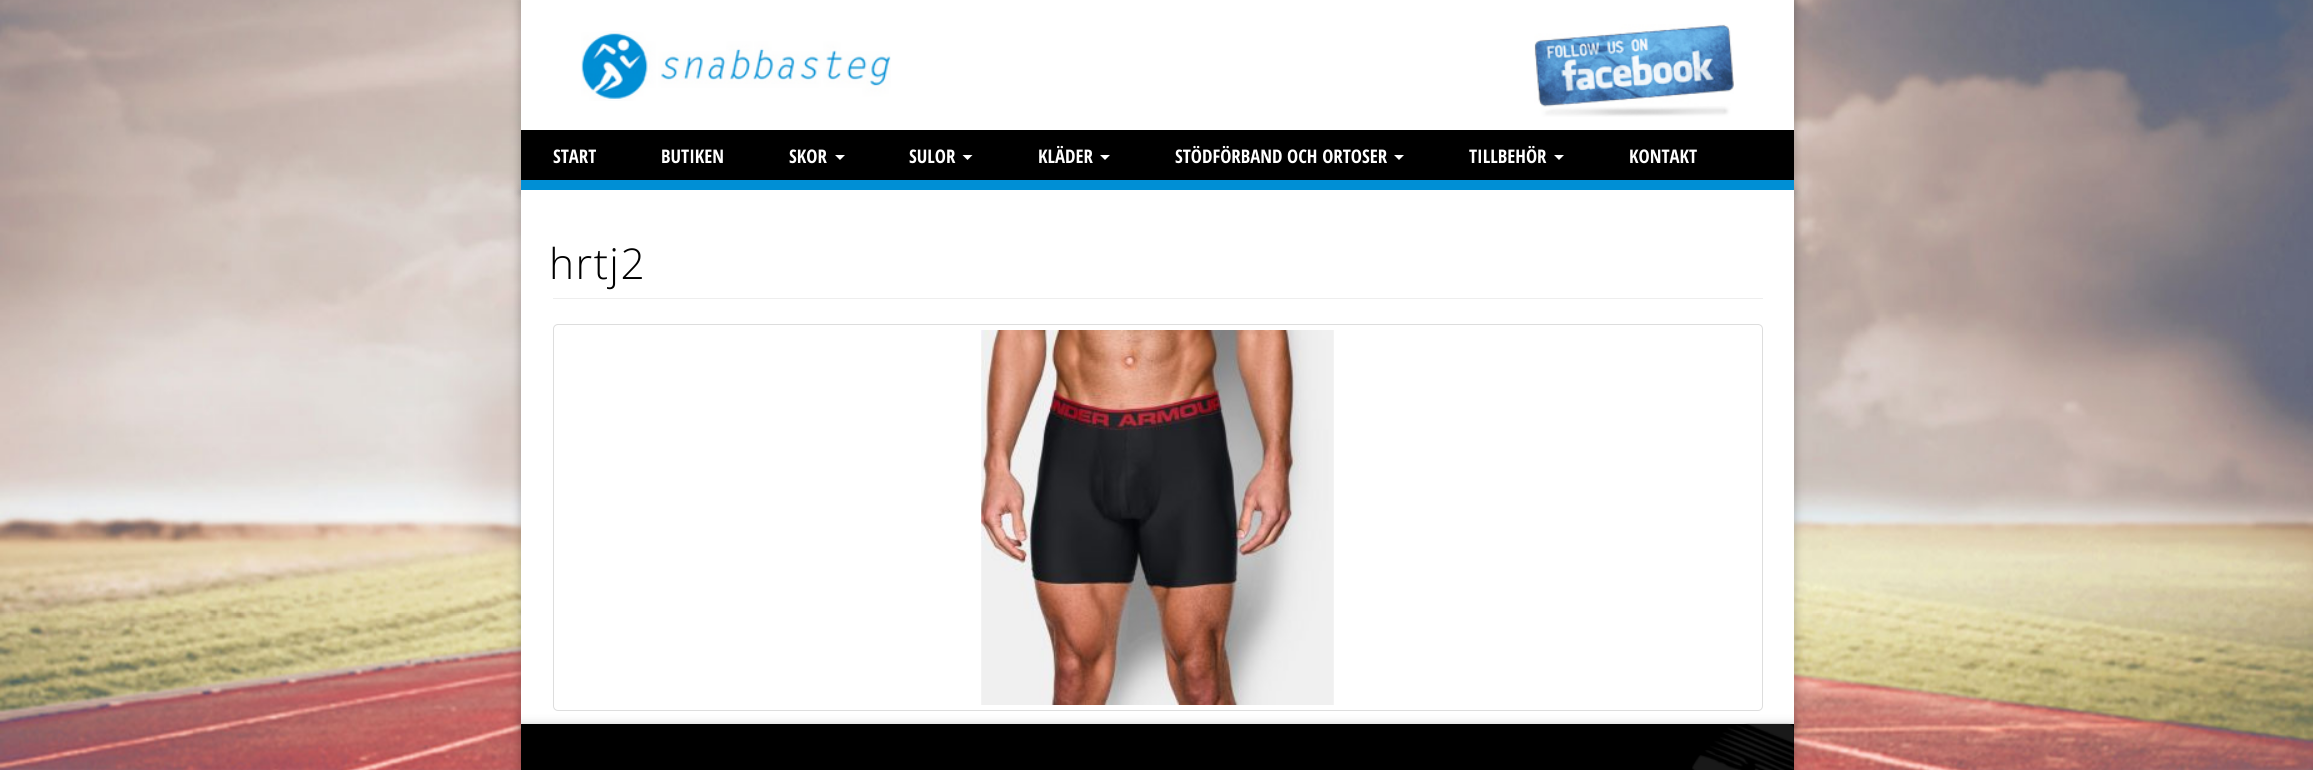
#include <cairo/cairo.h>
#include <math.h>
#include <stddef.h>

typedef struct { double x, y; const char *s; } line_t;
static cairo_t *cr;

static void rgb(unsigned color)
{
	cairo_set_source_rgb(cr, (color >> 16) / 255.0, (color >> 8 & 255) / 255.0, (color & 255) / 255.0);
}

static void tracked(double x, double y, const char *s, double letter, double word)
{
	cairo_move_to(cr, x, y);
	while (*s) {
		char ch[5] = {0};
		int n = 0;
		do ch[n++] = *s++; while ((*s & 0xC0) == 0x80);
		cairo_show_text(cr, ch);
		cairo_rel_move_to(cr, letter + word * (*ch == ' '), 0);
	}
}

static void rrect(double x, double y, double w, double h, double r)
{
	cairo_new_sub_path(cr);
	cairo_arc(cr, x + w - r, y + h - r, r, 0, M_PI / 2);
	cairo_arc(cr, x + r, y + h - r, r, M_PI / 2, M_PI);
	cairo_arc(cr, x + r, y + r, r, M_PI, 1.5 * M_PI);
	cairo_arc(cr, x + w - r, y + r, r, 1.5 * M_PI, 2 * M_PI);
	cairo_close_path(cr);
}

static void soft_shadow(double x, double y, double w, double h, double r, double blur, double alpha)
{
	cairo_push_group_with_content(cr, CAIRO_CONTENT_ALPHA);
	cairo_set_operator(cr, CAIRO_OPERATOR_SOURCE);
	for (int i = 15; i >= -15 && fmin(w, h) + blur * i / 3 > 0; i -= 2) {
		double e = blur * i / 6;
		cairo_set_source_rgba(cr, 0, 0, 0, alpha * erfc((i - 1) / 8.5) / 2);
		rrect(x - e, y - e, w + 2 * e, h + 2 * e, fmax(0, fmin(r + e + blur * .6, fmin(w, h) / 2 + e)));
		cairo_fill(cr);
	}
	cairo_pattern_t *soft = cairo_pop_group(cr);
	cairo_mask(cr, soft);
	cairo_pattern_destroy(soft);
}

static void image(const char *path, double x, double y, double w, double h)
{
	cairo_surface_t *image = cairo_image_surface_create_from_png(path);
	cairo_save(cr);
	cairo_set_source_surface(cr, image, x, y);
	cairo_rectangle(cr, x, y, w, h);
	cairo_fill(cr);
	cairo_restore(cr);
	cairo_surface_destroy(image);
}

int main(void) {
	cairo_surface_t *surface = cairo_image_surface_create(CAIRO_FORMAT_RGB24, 2313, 770);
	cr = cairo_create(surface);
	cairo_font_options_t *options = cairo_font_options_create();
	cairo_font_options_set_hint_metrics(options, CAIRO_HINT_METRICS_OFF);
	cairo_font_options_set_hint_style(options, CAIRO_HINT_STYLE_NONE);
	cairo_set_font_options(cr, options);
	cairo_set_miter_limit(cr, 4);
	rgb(0xffffff);
	cairo_paint(cr);
	image("img/1.png", 0, 0, 2313, 770);
	rgb(0x000000);
	soft_shadow(519, 0, 1277, 195, 0, 4.5, 0.2);
	rgb(0xffffff);
	cairo_rectangle(cr, 521, 0, 1273, 130);
	cairo_fill(cr);
	image("img/2.png", 581, 31, 310, 70);
	image("img/3.png", 1534, 24, 200, 93);
	rgb(0x000000);
	soft_shadow(519, 190, 1277, 539, 0, 4.5, 0.2);
	rgb(0x000000);
	cairo_rectangle(cr, 521, 130, 1273, 50);
	cairo_fill(cr);
	rgb(0x008fd5);
	cairo_rectangle(cr, 521, 180, 1273, 10);
	cairo_fill(cr);
	rgb(0xffffff);
	cairo_new_path(cr);
	cairo_move_to(cr, 835, 155);
	cairo_line_to(cr, 845, 155);
	cairo_line_to(cr, 840, 160);
	cairo_close_path(cr);
	cairo_fill(cr);
	cairo_new_path(cr);
	cairo_move_to(cr, 962.5, 155);
	cairo_line_to(cr, 972.5, 155);
	cairo_line_to(cr, 967.5, 160);
	cairo_close_path(cr);
	cairo_fill(cr);
	cairo_new_path(cr);
	cairo_move_to(cr, 1100, 155);
	cairo_line_to(cr, 1110, 155);
	cairo_line_to(cr, 1105, 160);
	cairo_close_path(cr);
	cairo_fill(cr);
	cairo_new_path(cr);
	cairo_move_to(cr, 1394, 155);
	cairo_line_to(cr, 1404, 155);
	cairo_line_to(cr, 1399, 160);
	cairo_close_path(cr);
	cairo_fill(cr);
	cairo_new_path(cr);
	cairo_move_to(cr, 1554, 155);
	cairo_line_to(cr, 1564, 155);
	cairo_line_to(cr, 1559, 160);
	cairo_close_path(cr);
	cairo_fill(cr);
	cairo_rectangle(cr, 521, 190, 1273, 534);
	cairo_fill(cr);
	rgb(0xeeeeee);
	cairo_rectangle(cr, 553, 298, 1210, 1);
	cairo_fill(cr);
	rrect(553.5, 324.5, 1209, 386, 4.5);
	rgb(0xdddddd);
	cairo_set_line_width(cr, 1);
	cairo_stroke(cr);
	image("img/4.png", 981, 330, 353, 375);
	rgb(0x000000);
	soft_shadow(519, 724, 1277, 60, 0, 4.5, 0.2);
	rgb(0x000000);
	cairo_rectangle(cr, 521, 724, 1273, 46);
	cairo_fill(cr);
	image("img/5.png", 1692, 723, 102, 47);
	cairo_select_font_face(cr, "Open Sans Condensed", CAIRO_FONT_SLANT_NORMAL, CAIRO_FONT_WEIGHT_BOLD);
	cairo_set_font_size(cr, 18.75);
	rgb(0xffffff);
	{
		static const line_t items[] = {
			{553, 163, "START"},
			{661, 163, "BUTIKEN"},
			{789, 163, "SKOR"},
			{909, 163, "SULOR"},
			{1038, 163, "KLÄDER"},
			{1175, 163, "STÖDFÖRBAND OCH ORTOSER"},
			{1469, 163, "TILLBEHÖR"},
			{1629, 163, "KONTAKT"},
		};
		for (size_t i = 0; i < sizeof items / sizeof *items; i++) {
			cairo_move_to(cr, items[i].x, items[i].y);
			cairo_show_text(cr, items[i].s);
		}
	}
	cairo_select_font_face(cr, "Open Sans Light", CAIRO_FONT_SLANT_NORMAL, CAIRO_FONT_WEIGHT_NORMAL);
	cairo_set_font_size(cr, 42.5);
	rgb(0x000000);
	tracked(549, 279, "hrtj2", 1.5, 0);
	cairo_surface_write_to_png(surface, "page.png");
	cairo_font_options_destroy(options);
	cairo_destroy(cr);
	cairo_surface_destroy(surface);
	return 0;
}
